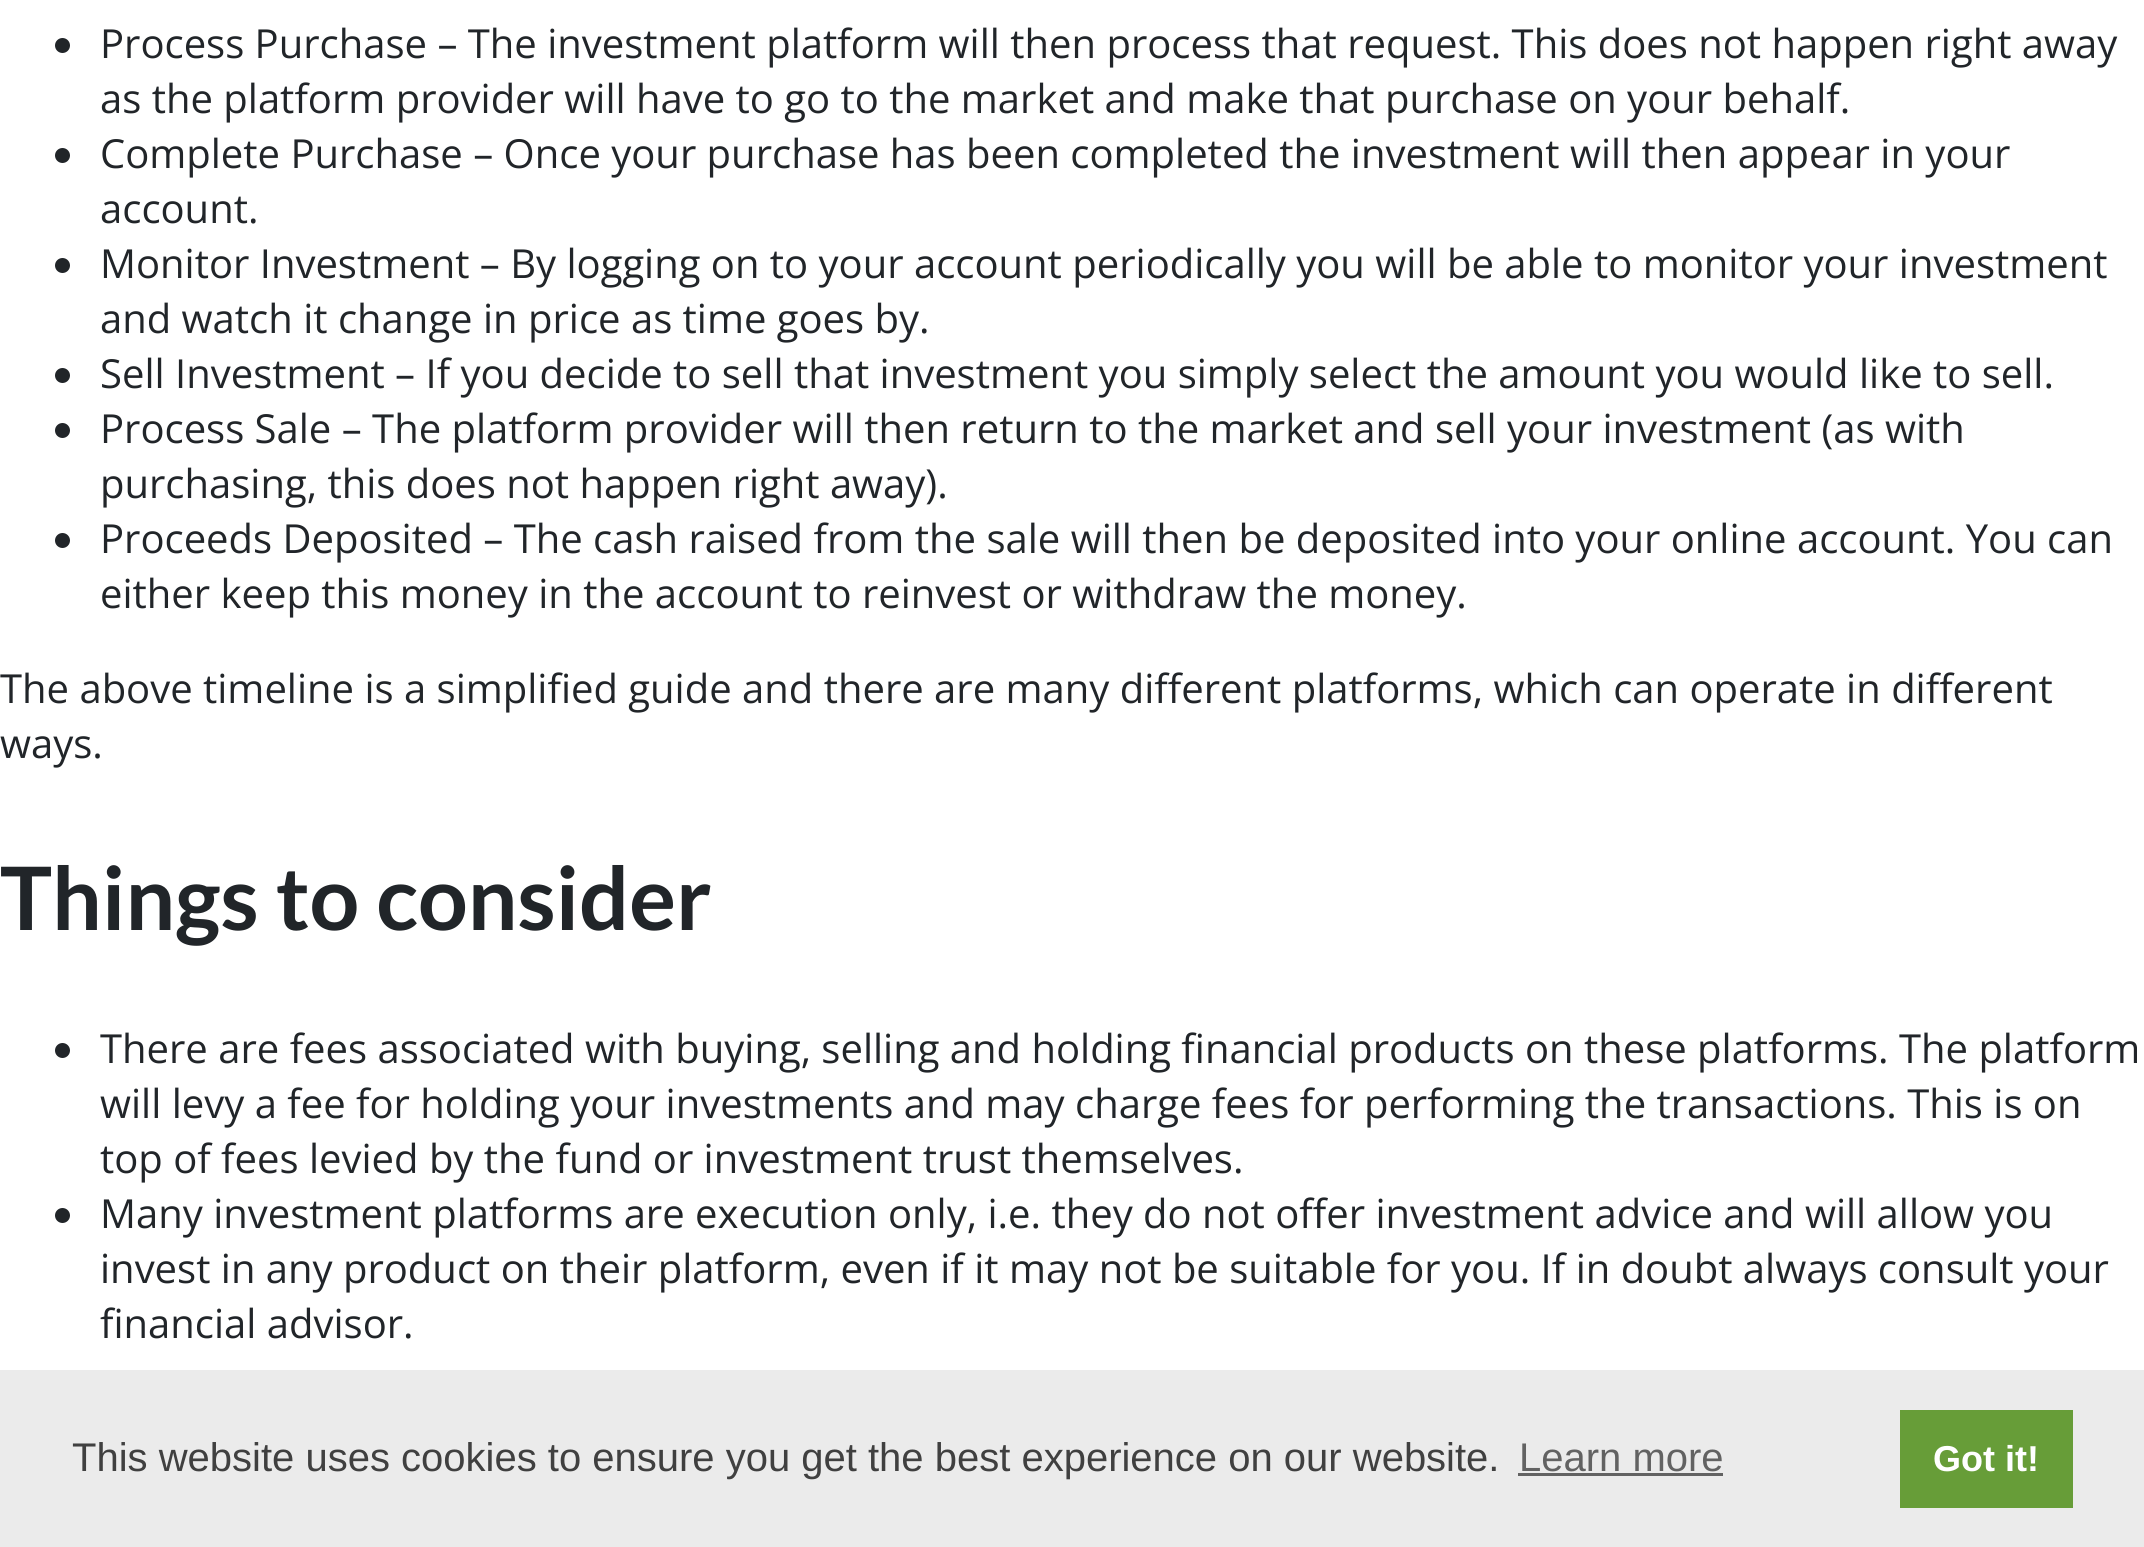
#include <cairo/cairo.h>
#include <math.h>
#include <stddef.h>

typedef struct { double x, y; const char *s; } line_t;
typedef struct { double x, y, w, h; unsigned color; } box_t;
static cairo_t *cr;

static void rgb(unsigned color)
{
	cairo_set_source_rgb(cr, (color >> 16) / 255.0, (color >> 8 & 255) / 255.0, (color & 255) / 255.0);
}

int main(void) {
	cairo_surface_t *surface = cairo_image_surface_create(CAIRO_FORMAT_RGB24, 2144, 1547);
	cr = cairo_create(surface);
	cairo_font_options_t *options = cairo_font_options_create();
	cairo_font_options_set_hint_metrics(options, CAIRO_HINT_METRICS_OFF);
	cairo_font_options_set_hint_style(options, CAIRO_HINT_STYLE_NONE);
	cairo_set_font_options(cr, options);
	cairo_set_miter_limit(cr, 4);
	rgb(0xffffff);
	cairo_paint(cr);
	rgb(0x212529);
	cairo_arc(cr, 62.5, 45.5, 7.5, 0, 2 * M_PI);
	cairo_fill(cr);
	cairo_arc(cr, 62.5, 155.5, 7.5, 0, 2 * M_PI);
	cairo_fill(cr);
	cairo_arc(cr, 62.5, 265.5, 7.5, 0, 2 * M_PI);
	cairo_fill(cr);
	cairo_arc(cr, 62.5, 375.5, 7.5, 0, 2 * M_PI);
	cairo_fill(cr);
	cairo_arc(cr, 62.5, 430.5, 7.5, 0, 2 * M_PI);
	cairo_fill(cr);
	cairo_arc(cr, 62.5, 540.5, 7.5, 0, 2 * M_PI);
	cairo_fill(cr);
	cairo_arc(cr, 62.5, 1050.5, 7.5, 0, 2 * M_PI);
	cairo_fill(cr);
	cairo_arc(cr, 62.5, 1215.5, 7.5, 0, 2 * M_PI);
	cairo_fill(cr);
	{
		static const box_t items[] = {
			{0, 1370, 2144, 177, 0xebebeb},
			{1518, 1473, 205, 3, 0x626262},
			{1900, 1410, 173, 98, 0x679d38},
		};
		for (size_t i = 0; i < sizeof items / sizeof *items; i++) {
			rgb(items[i].color);
			cairo_rectangle(cr, items[i].x, items[i].y, items[i].w, items[i].h);
			cairo_fill(cr);
		}
	}
	cairo_select_font_face(cr, "Open Sans", CAIRO_FONT_SLANT_NORMAL, CAIRO_FONT_WEIGHT_NORMAL);
	cairo_set_font_size(cr, 40);
	rgb(0x212529);
	{
		static const line_t items[] = {
			{100, 58, "Process Purchase – The investment platform will then process that request. This does not happen right away"},
			{100, 113, "as the platform provider will have to go to the market and make that purchase on your behalf."},
			{100, 168, "Complete Purchase – Once your purchase has been completed the investment will then appear in your"},
			{100, 223, "account."},
			{100, 278, "Monitor Investment – By logging on to your account periodically you will be able to monitor your investment"},
			{100, 333, "and watch it change in price as time goes by."},
			{100, 388, "Sell Investment – If you decide to sell that investment you simply select the amount you would like to sell."},
			{100, 443, "Process Sale – The platform provider will then return to the market and sell your investment (as with"},
			{100, 498, "purchasing, this does not happen right away)."},
			{100, 553, "Proceeds Deposited – The cash raised from the sale will then be deposited into your online account. You can"},
			{100, 608, "either keep this money in the account to reinvest or withdraw the money."},
			{0, 703, "The above timeline is a simplified guide and there are many different platforms, which can operate in different"},
			{0, 758, "ways."},
		};
		for (size_t i = 0; i < sizeof items / sizeof *items; i++) {
			cairo_move_to(cr, items[i].x, items[i].y);
			cairo_show_text(cr, items[i].s);
		}
	}
	cairo_select_font_face(cr, "Lato", CAIRO_FONT_SLANT_NORMAL, CAIRO_FONT_WEIGHT_BOLD);
	cairo_set_font_size(cr, 87.5);
	cairo_move_to(cr, 0, 930);
	cairo_show_text(cr, "Things to consider");
	cairo_select_font_face(cr, "Open Sans", CAIRO_FONT_SLANT_NORMAL, CAIRO_FONT_WEIGHT_NORMAL);
	cairo_set_font_size(cr, 40);
	{
		static const line_t items[] = {
			{100, 1063, "There are fees associated with buying, selling and holding financial products on these platforms. The platform"},
			{100, 1118, "will levy a fee for holding your investments and may charge fees for performing the transactions. This is on"},
			{100, 1173, "top of fees levied by the fund or investment trust themselves."},
			{100, 1228, "Many investment platforms are execution only, i.e. they do not offer investment advice and will allow you"},
			{100, 1283, "invest in any product on their platform, even if it may not be suitable for you. If in doubt always consult your"},
			{100, 1338, "financial advisor."},
		};
		for (size_t i = 0; i < sizeof items / sizeof *items; i++) {
			cairo_move_to(cr, items[i].x, items[i].y);
			cairo_show_text(cr, items[i].s);
		}
	}
	cairo_select_font_face(cr, "Liberation Sans", CAIRO_FONT_SLANT_NORMAL, CAIRO_FONT_WEIGHT_NORMAL);
	rgb(0x404040);
	cairo_move_to(cr, 72, 1471);
	cairo_show_text(cr, "This website uses cookies to ensure you get the best experience on our website.");
	rgb(0x626262);
	cairo_move_to(cr, 1519, 1471);
	cairo_show_text(cr, "Learn more");
	cairo_select_font_face(cr, "Liberation Sans", CAIRO_FONT_SLANT_NORMAL, CAIRO_FONT_WEIGHT_BOLD);
	cairo_set_font_size(cr, 36);
	rgb(0xffffff);
	cairo_move_to(cr, 1933, 1471);
	cairo_show_text(cr, "Got it!");
	cairo_surface_write_to_png(surface, "page.png");
	cairo_font_options_destroy(options);
	cairo_destroy(cr);
	cairo_surface_destroy(surface);
	return 0;
}
